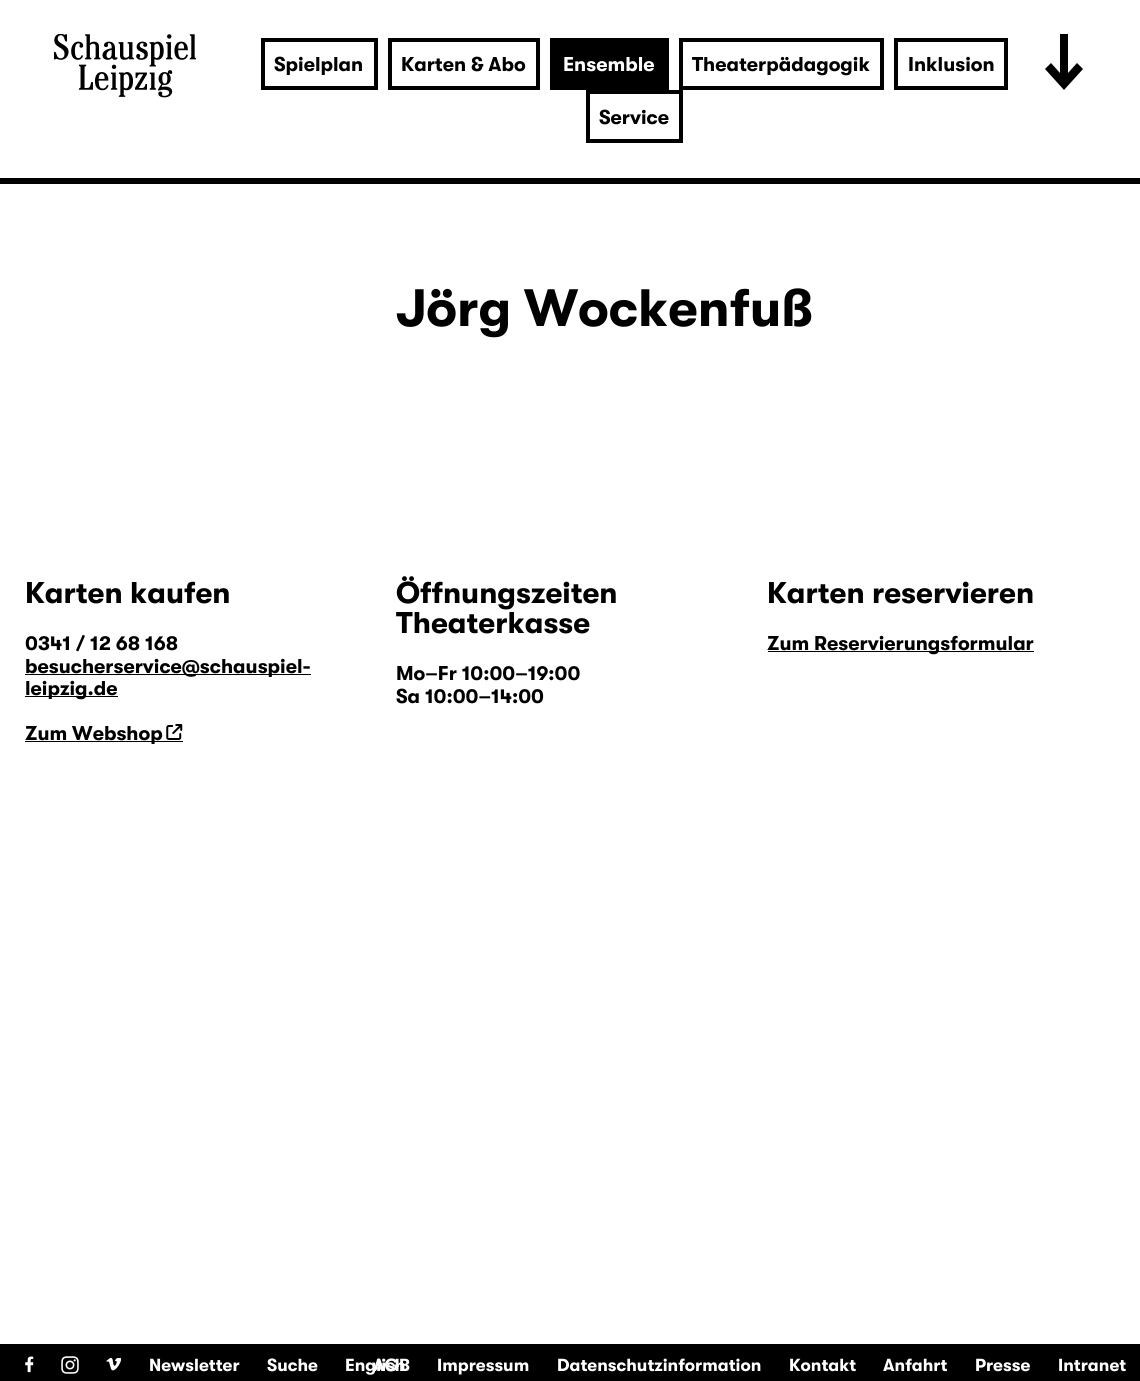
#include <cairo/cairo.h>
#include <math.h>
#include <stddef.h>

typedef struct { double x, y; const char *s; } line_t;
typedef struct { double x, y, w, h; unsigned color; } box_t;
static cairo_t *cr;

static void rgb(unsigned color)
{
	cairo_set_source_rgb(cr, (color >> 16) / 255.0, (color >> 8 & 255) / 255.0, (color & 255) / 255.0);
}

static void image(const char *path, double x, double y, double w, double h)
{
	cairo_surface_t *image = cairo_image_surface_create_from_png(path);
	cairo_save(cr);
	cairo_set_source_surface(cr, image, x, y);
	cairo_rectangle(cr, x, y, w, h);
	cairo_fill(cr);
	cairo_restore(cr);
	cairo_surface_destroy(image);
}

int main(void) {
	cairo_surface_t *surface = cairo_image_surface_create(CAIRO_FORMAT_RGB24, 1140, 1381);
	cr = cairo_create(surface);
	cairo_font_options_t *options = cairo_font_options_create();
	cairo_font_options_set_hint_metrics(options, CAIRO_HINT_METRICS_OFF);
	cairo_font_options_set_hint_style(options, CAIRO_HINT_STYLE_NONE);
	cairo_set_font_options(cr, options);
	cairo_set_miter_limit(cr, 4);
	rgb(0xffffff);
	cairo_paint(cr);
	rgb(0x000000);
	cairo_rectangle(cr, 0, 178, 1140, 6);
	cairo_fill(cr);
	image("img/1.png", 54, 34, 142, 64);
	cairo_rectangle(cr, 263, 40, 113, 48);
	cairo_set_line_width(cr, 4);
	cairo_stroke(cr);
	cairo_rectangle(cr, 390, 40, 148, 48);
	cairo_stroke(cr);
	cairo_rectangle(cr, 550, 38, 119, 52);
	cairo_fill(cr);
	cairo_rectangle(cr, 681, 40, 201, 48);
	cairo_stroke(cr);
	cairo_rectangle(cr, 896, 40, 110, 48);
	cairo_stroke(cr);
	cairo_rectangle(cr, 588, 92, 93, 49);
	cairo_stroke(cr);
	cairo_new_path(cr);
	cairo_move_to(cr, 1060, 34);
	cairo_line_to(cr, 1060, 73);
	cairo_line_to(cr, 1051, 63);
	cairo_line_to(cr, 1045, 69);
	cairo_line_to(cr, 1064, 90);
	cairo_line_to(cr, 1083, 69);
	cairo_line_to(cr, 1077, 63);
	cairo_line_to(cr, 1068, 73);
	cairo_line_to(cr, 1068, 34);
	cairo_close_path(cr);
	cairo_fill(cr);
	{
		static const box_t items[] = {
			{25, 674, 286, 1, 0x000000},
			{25, 696, 93, 1, 0x000000},
			{25, 741, 158, 1, 0x000000},
		};
		for (size_t i = 0; i < sizeof items / sizeof *items; i++) {
			rgb(items[i].color);
			cairo_rectangle(cr, items[i].x, items[i].y, items[i].w, items[i].h);
			cairo_fill(cr);
		}
	}
	image("img/2.png", 166, 724, 17, 16);
	cairo_rectangle(cr, 768, 651, 266, 1);
	cairo_fill(cr);
	cairo_rectangle(cr, 0, 1344, 1140, 37);
	cairo_fill(cr);
	image("img/3.png", 25, 1356, 9, 17);
	image("img/4.png", 61, 1356, 18, 18);
	image("img/5.png", 106, 1358, 15, 13);
	cairo_select_font_face(cr, "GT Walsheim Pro", CAIRO_FONT_SLANT_NORMAL, CAIRO_FONT_WEIGHT_BOLD);
	cairo_set_font_size(cr, 20);
	cairo_move_to(cr, 274, 71);
	cairo_show_text(cr, "Spielplan");
	cairo_move_to(cr, 401, 71);
	cairo_show_text(cr, "Karten & Abo");
	rgb(0xffffff);
	cairo_move_to(cr, 563, 71);
	cairo_show_text(cr, "Ensemble");
	rgb(0x000000);
	{
		static const line_t items[] = {
			{692, 71, "Theaterpädagogik"},
			{908, 71, "Inklusion"},
			{599, 124, "Service"},
		};
		for (size_t i = 0; i < sizeof items / sizeof *items; i++) {
			cairo_move_to(cr, items[i].x, items[i].y);
			cairo_show_text(cr, items[i].s);
		}
	}
	cairo_set_font_size(cr, 52.5);
	cairo_move_to(cr, 396, 326);
	cairo_show_text(cr, "Jörg Wockenfuß");
	cairo_set_font_size(cr, 30);
	cairo_move_to(cr, 25, 603);
	cairo_show_text(cr, "Karten kaufen");
	cairo_set_font_size(cr, 20);
	{
		static const line_t items[] = {
			{25, 650, "0341 / 12 68 168"},
			{25, 673, "besucherservice@schauspiel-"},
			{25, 695, "leipzig.de"},
			{25, 740, "Zum Webshop"},
		};
		for (size_t i = 0; i < sizeof items / sizeof *items; i++) {
			cairo_move_to(cr, items[i].x, items[i].y);
			cairo_show_text(cr, items[i].s);
		}
	}
	cairo_set_font_size(cr, 30);
	cairo_move_to(cr, 396, 603);
	cairo_show_text(cr, "Öffnungszeiten");
	cairo_move_to(cr, 396, 633);
	cairo_show_text(cr, "Theaterkasse");
	cairo_set_font_size(cr, 20);
	cairo_move_to(cr, 396, 680);
	cairo_show_text(cr, "Mo–Fr 10:00–19:00");
	cairo_move_to(cr, 396, 703);
	cairo_show_text(cr, "Sa 10:00–14:00");
	cairo_set_font_size(cr, 30);
	cairo_move_to(cr, 767, 603);
	cairo_show_text(cr, "Karten reservieren");
	cairo_set_font_size(cr, 20);
	cairo_move_to(cr, 767, 650);
	cairo_show_text(cr, "Zum Reservierungsformular");
	cairo_set_font_size(cr, 17.5);
	rgb(0xffffff);
	{
		static const line_t items[] = {
			{149, 1371, "Newsletter"},
			{267, 1371, "Suche"},
			{345, 1371, "English"},
			{373, 1371, "AGB"},
			{437, 1371, "Impressum"},
			{557, 1371, "Datenschutzinformation"},
			{789, 1371, "Kontakt"},
			{883, 1371, "Anfahrt"},
			{975, 1371, "Presse"},
			{1058, 1371, "Intranet"},
		};
		for (size_t i = 0; i < sizeof items / sizeof *items; i++) {
			cairo_move_to(cr, items[i].x, items[i].y);
			cairo_show_text(cr, items[i].s);
		}
	}
	cairo_surface_write_to_png(surface, "page.png");
	cairo_font_options_destroy(options);
	cairo_destroy(cr);
	cairo_surface_destroy(surface);
	return 0;
}
